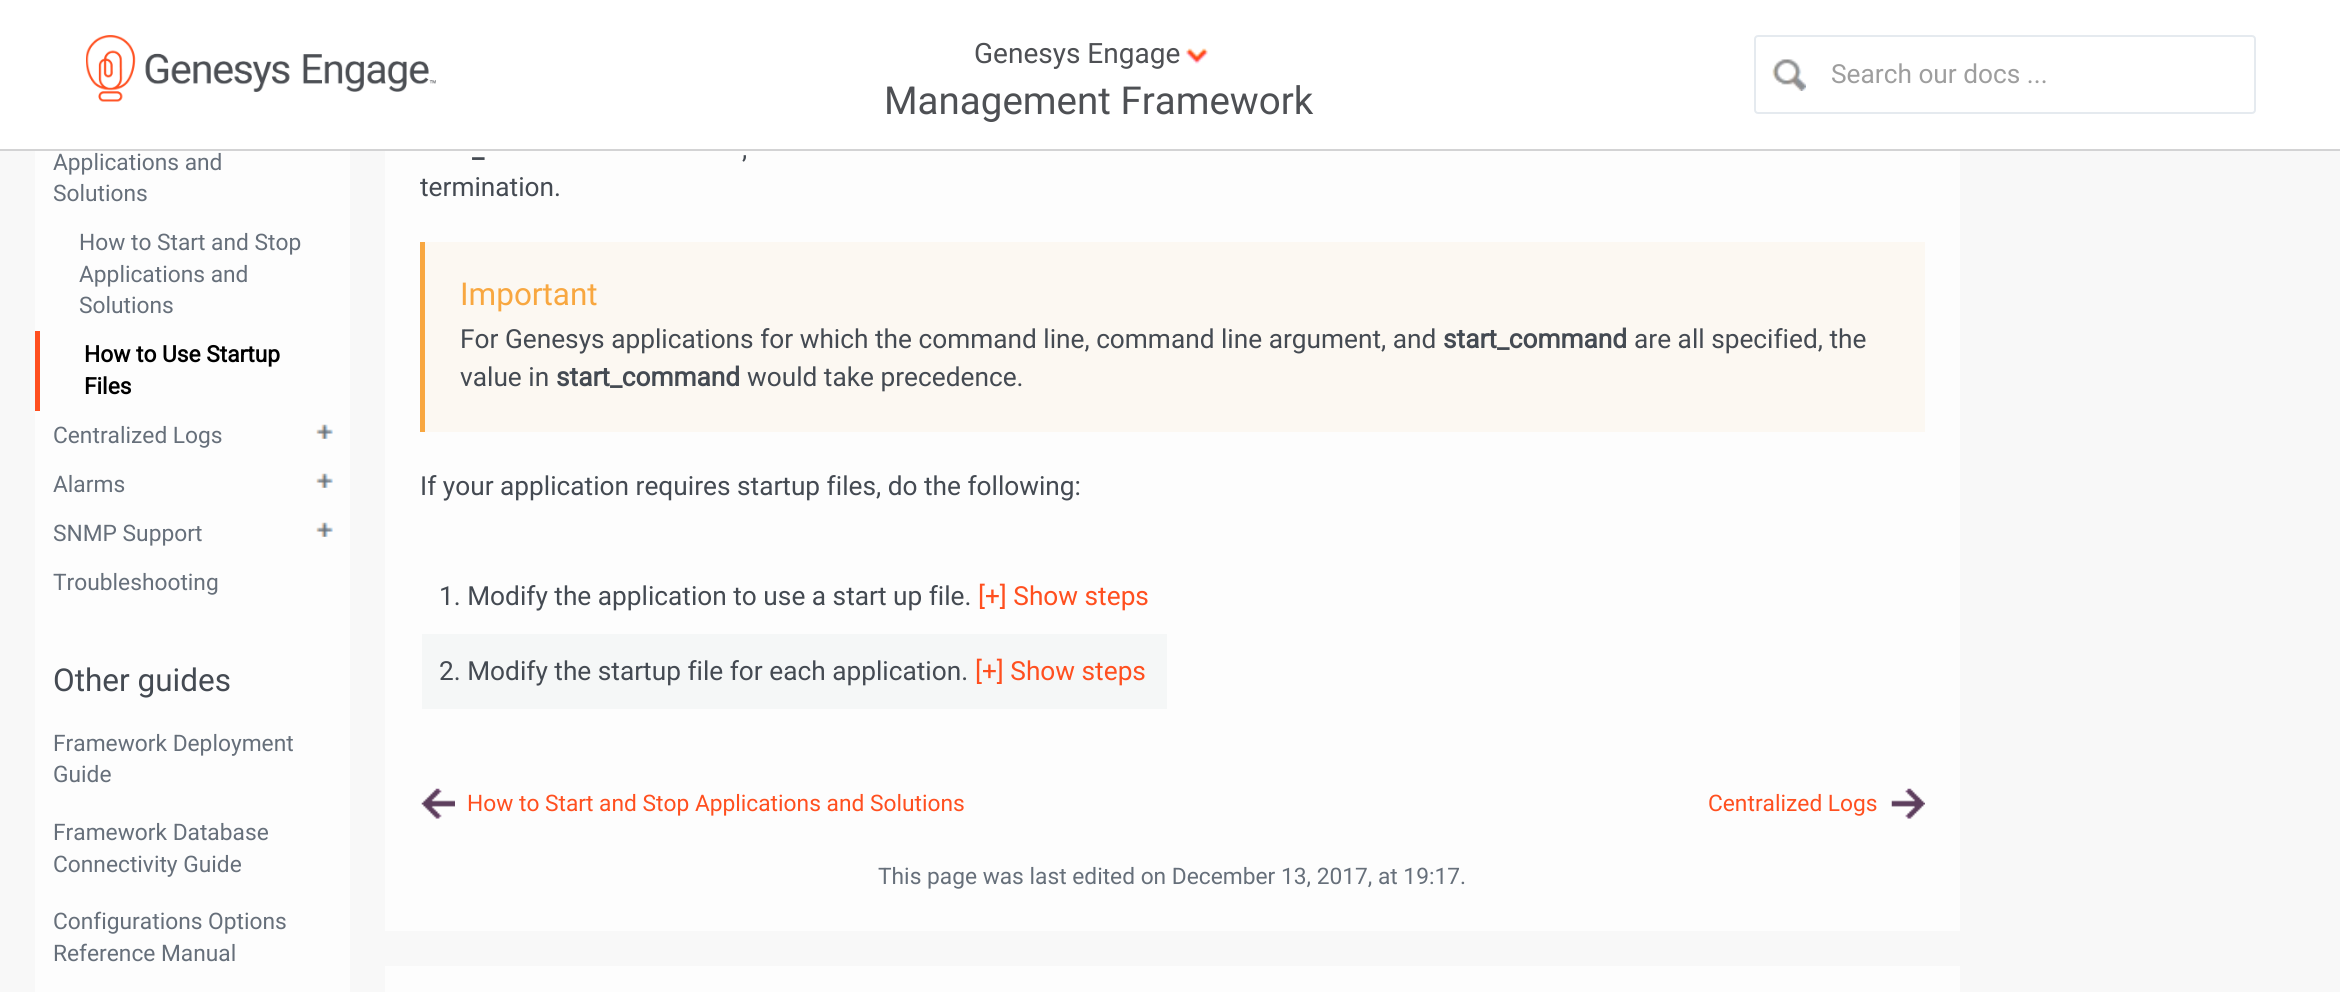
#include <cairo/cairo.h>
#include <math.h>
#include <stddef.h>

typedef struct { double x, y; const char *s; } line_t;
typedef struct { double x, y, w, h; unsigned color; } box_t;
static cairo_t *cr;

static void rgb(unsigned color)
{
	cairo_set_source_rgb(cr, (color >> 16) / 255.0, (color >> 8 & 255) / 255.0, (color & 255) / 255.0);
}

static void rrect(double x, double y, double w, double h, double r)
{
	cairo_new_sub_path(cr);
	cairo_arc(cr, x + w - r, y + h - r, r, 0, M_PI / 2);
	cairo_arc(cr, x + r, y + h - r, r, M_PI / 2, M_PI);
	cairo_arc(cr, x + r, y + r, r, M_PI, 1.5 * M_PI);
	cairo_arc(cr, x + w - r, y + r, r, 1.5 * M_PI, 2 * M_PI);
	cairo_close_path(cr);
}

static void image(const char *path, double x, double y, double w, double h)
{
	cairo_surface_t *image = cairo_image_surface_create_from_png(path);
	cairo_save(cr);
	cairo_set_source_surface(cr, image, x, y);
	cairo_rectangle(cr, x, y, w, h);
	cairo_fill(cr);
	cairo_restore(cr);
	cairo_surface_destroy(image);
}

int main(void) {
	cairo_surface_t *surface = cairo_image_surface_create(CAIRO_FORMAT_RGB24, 2340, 992);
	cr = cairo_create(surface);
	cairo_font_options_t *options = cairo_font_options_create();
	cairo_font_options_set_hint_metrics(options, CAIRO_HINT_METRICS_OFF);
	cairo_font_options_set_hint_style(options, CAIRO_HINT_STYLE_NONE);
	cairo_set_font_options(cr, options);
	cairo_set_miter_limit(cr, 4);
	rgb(0xf8f8f8);
	cairo_paint(cr);
	rgb(0xffffff);
	cairo_rectangle(cr, 0, 0, 2340, 149);
	cairo_fill(cr);
	rgb(0xd3d3d4);
	cairo_rectangle(cr, 0, 149, 2340, 2);
	cairo_fill(cr);
	image("img/1.png", 86, 35, 350, 67);
	image("img/2.png", 1186, 48, 22, 16);
	image("img/3.png", 1772, 59, 34, 32);
	rrect(1755, 36, 500, 77, 3);
	rgb(0xe5eaef);
	cairo_stroke(cr);
	rgb(0xfdfdfd);
	cairo_rectangle(cr, 35, 151, 315, 841);
	cairo_fill(cr);
	rgb(0xff4f1f);
	cairo_rectangle(cr, 35, 331, 5, 80);
	cairo_fill(cr);
	image("img/4.png", 316, 424, 17, 15);
	image("img/4.png", 316, 473, 17, 15);
	image("img/4.png", 316, 522, 17, 15);
	{
		static const box_t items[] = {
			{385, 151, 1575, 841, 0xfdfdfd},
			{425, 242, 1500, 190, 0xfcf8f2},
			{420, 242, 5, 190, 0xf8a740},
			{422, 634, 745, 75, 0xf5f7f7},
		};
		for (size_t i = 0; i < sizeof items / sizeof *items; i++) {
			rgb(items[i].color);
			cairo_rectangle(cr, items[i].x, items[i].y, items[i].w, items[i].h);
			cairo_fill(cr);
		}
	}
	image("img/5.png", 421, 788, 34, 31);
	image("img/6.png", 1891, 788, 34, 31);
	rgb(0xf8f8f8);
	cairo_rectangle(cr, 385, 931, 1575, 35);
	cairo_fill(cr);
	cairo_select_font_face(cr, "Roboto", CAIRO_FONT_SLANT_NORMAL, CAIRO_FONT_WEIGHT_NORMAL);
	cairo_set_font_size(cr, 28);
	rgb(0x4e5054);
	cairo_move_to(cr, 974, 63);
	cairo_show_text(cr, "Genesys Engage");
	cairo_set_font_size(cr, 38.5);
	cairo_move_to(cr, 884, 114);
	cairo_show_text(cr, "Management Framework");
	cairo_set_font_size(cr, 26.25);
	rgb(0x9e9e9e);
	cairo_move_to(cr, 1831, 83);
	cairo_show_text(cr, "Search our docs ...");
	cairo_set_font_size(cr, 22.75);
	rgb(0x666f7a);
	{
		static const line_t items[] = {
			{53, 170, "Applications and"},
			{53, 201, "Solutions"},
			{79, 250, "How to Start and Stop"},
			{79, 282, "Applications and"},
			{79, 313, "Solutions"},
		};
		for (size_t i = 0; i < sizeof items / sizeof *items; i++) {
			cairo_move_to(cr, items[i].x, items[i].y);
			cairo_show_text(cr, items[i].s);
		}
	}
	cairo_select_font_face(cr, "Roboto", CAIRO_FONT_SLANT_NORMAL, CAIRO_FONT_WEIGHT_BOLD);
	rgb(0x000000);
	cairo_move_to(cr, 84, 362);
	cairo_show_text(cr, "How to Use Startup");
	cairo_move_to(cr, 84, 394);
	cairo_show_text(cr, "Files");
	cairo_select_font_face(cr, "Roboto", CAIRO_FONT_SLANT_NORMAL, CAIRO_FONT_WEIGHT_NORMAL);
	rgb(0x666f7a);
	{
		static const line_t items[] = {
			{53, 443, "Centralized Logs"},
			{53, 492, "Alarms"},
			{53, 541, "SNMP Support"},
			{53, 590, "Troubleshooting"},
		};
		for (size_t i = 0; i < sizeof items / sizeof *items; i++) {
			cairo_move_to(cr, items[i].x, items[i].y);
			cairo_show_text(cr, items[i].s);
		}
	}
	cairo_set_font_size(cr, 31.5);
	rgb(0x444a52);
	cairo_move_to(cr, 53, 691);
	cairo_show_text(cr, "Other guides");
	cairo_set_font_size(cr, 22.75);
	rgb(0x666f7a);
	{
		static const line_t items[] = {
			{53, 751, "Framework Deployment"},
			{53, 782, "Guide"},
			{53, 840, "Framework Database"},
			{53, 872, "Connectivity Guide"},
			{53, 929, "Configurations Options"},
			{53, 961, "Reference Manual"},
		};
		for (size_t i = 0; i < sizeof items / sizeof *items; i++) {
			cairo_move_to(cr, items[i].x, items[i].y);
			cairo_show_text(cr, items[i].s);
		}
	}
	cairo_select_font_face(cr, "Roboto", CAIRO_FONT_SLANT_NORMAL, CAIRO_FONT_WEIGHT_BOLD);
	cairo_set_font_size(cr, 26.25);
	rgb(0x444a52);
	cairo_move_to(cr, 472, 158);
	cairo_show_text(cr, "_");
	cairo_select_font_face(cr, "Roboto", CAIRO_FONT_SLANT_NORMAL, CAIRO_FONT_WEIGHT_NORMAL);
	cairo_move_to(cr, 742, 158);
	cairo_show_text(cr, ",");
	cairo_move_to(cr, 420, 196);
	cairo_show_text(cr, "termination.");
	cairo_set_font_size(cr, 31.5);
	rgb(0xf8a740);
	cairo_move_to(cr, 460, 305);
	cairo_show_text(cr, "Important");
	cairo_set_font_size(cr, 26.25);
	rgb(0x444a52);
	cairo_move_to(cr, 460, 348);
	cairo_show_text(cr, "For Genesys applications for which the command line, command line argument, and");
	cairo_select_font_face(cr, "Roboto", CAIRO_FONT_SLANT_NORMAL, CAIRO_FONT_WEIGHT_BOLD);
	cairo_move_to(cr, 1443, 348);
	cairo_show_text(cr, "start_command");
	cairo_select_font_face(cr, "Roboto", CAIRO_FONT_SLANT_NORMAL, CAIRO_FONT_WEIGHT_NORMAL);
	cairo_move_to(cr, 1634, 348);
	cairo_show_text(cr, "are all specified, the");
	cairo_move_to(cr, 460, 386);
	cairo_show_text(cr, "value in");
	cairo_select_font_face(cr, "Roboto", CAIRO_FONT_SLANT_NORMAL, CAIRO_FONT_WEIGHT_BOLD);
	cairo_move_to(cr, 556, 386);
	cairo_show_text(cr, "start_command");
	cairo_select_font_face(cr, "Roboto", CAIRO_FONT_SLANT_NORMAL, CAIRO_FONT_WEIGHT_NORMAL);
	{
		static const line_t items[] = {
			{747, 386, "would take precedence."},
			{420, 495, "If your application requires startup files, do the following:"},
			{439, 605, "1. Modify the application to use a start up file."},
		};
		for (size_t i = 0; i < sizeof items / sizeof *items; i++) {
			cairo_move_to(cr, items[i].x, items[i].y);
			cairo_show_text(cr, items[i].s);
		}
	}
	rgb(0xff4f1f);
	cairo_move_to(cr, 978, 605);
	cairo_show_text(cr, "[+] Show steps");
	rgb(0x444a52);
	cairo_move_to(cr, 439, 680);
	cairo_show_text(cr, "2. Modify the startup file for each application.");
	rgb(0xff4f1f);
	cairo_move_to(cr, 975, 680);
	cairo_show_text(cr, "[+] Show steps");
	cairo_set_font_size(cr, 22.75);
	cairo_move_to(cr, 467, 811);
	cairo_show_text(cr, "How to Start and Stop Applications and Solutions");
	cairo_move_to(cr, 1708, 811);
	cairo_show_text(cr, "Centralized Logs");
	rgb(0x666f7a);
	cairo_move_to(cr, 878, 884);
	cairo_show_text(cr, "This page was last edited on December 13, 2017, at 19:17.");
	cairo_surface_write_to_png(surface, "page.png");
	cairo_font_options_destroy(options);
	cairo_destroy(cr);
	cairo_surface_destroy(surface);
	return 0;
}
